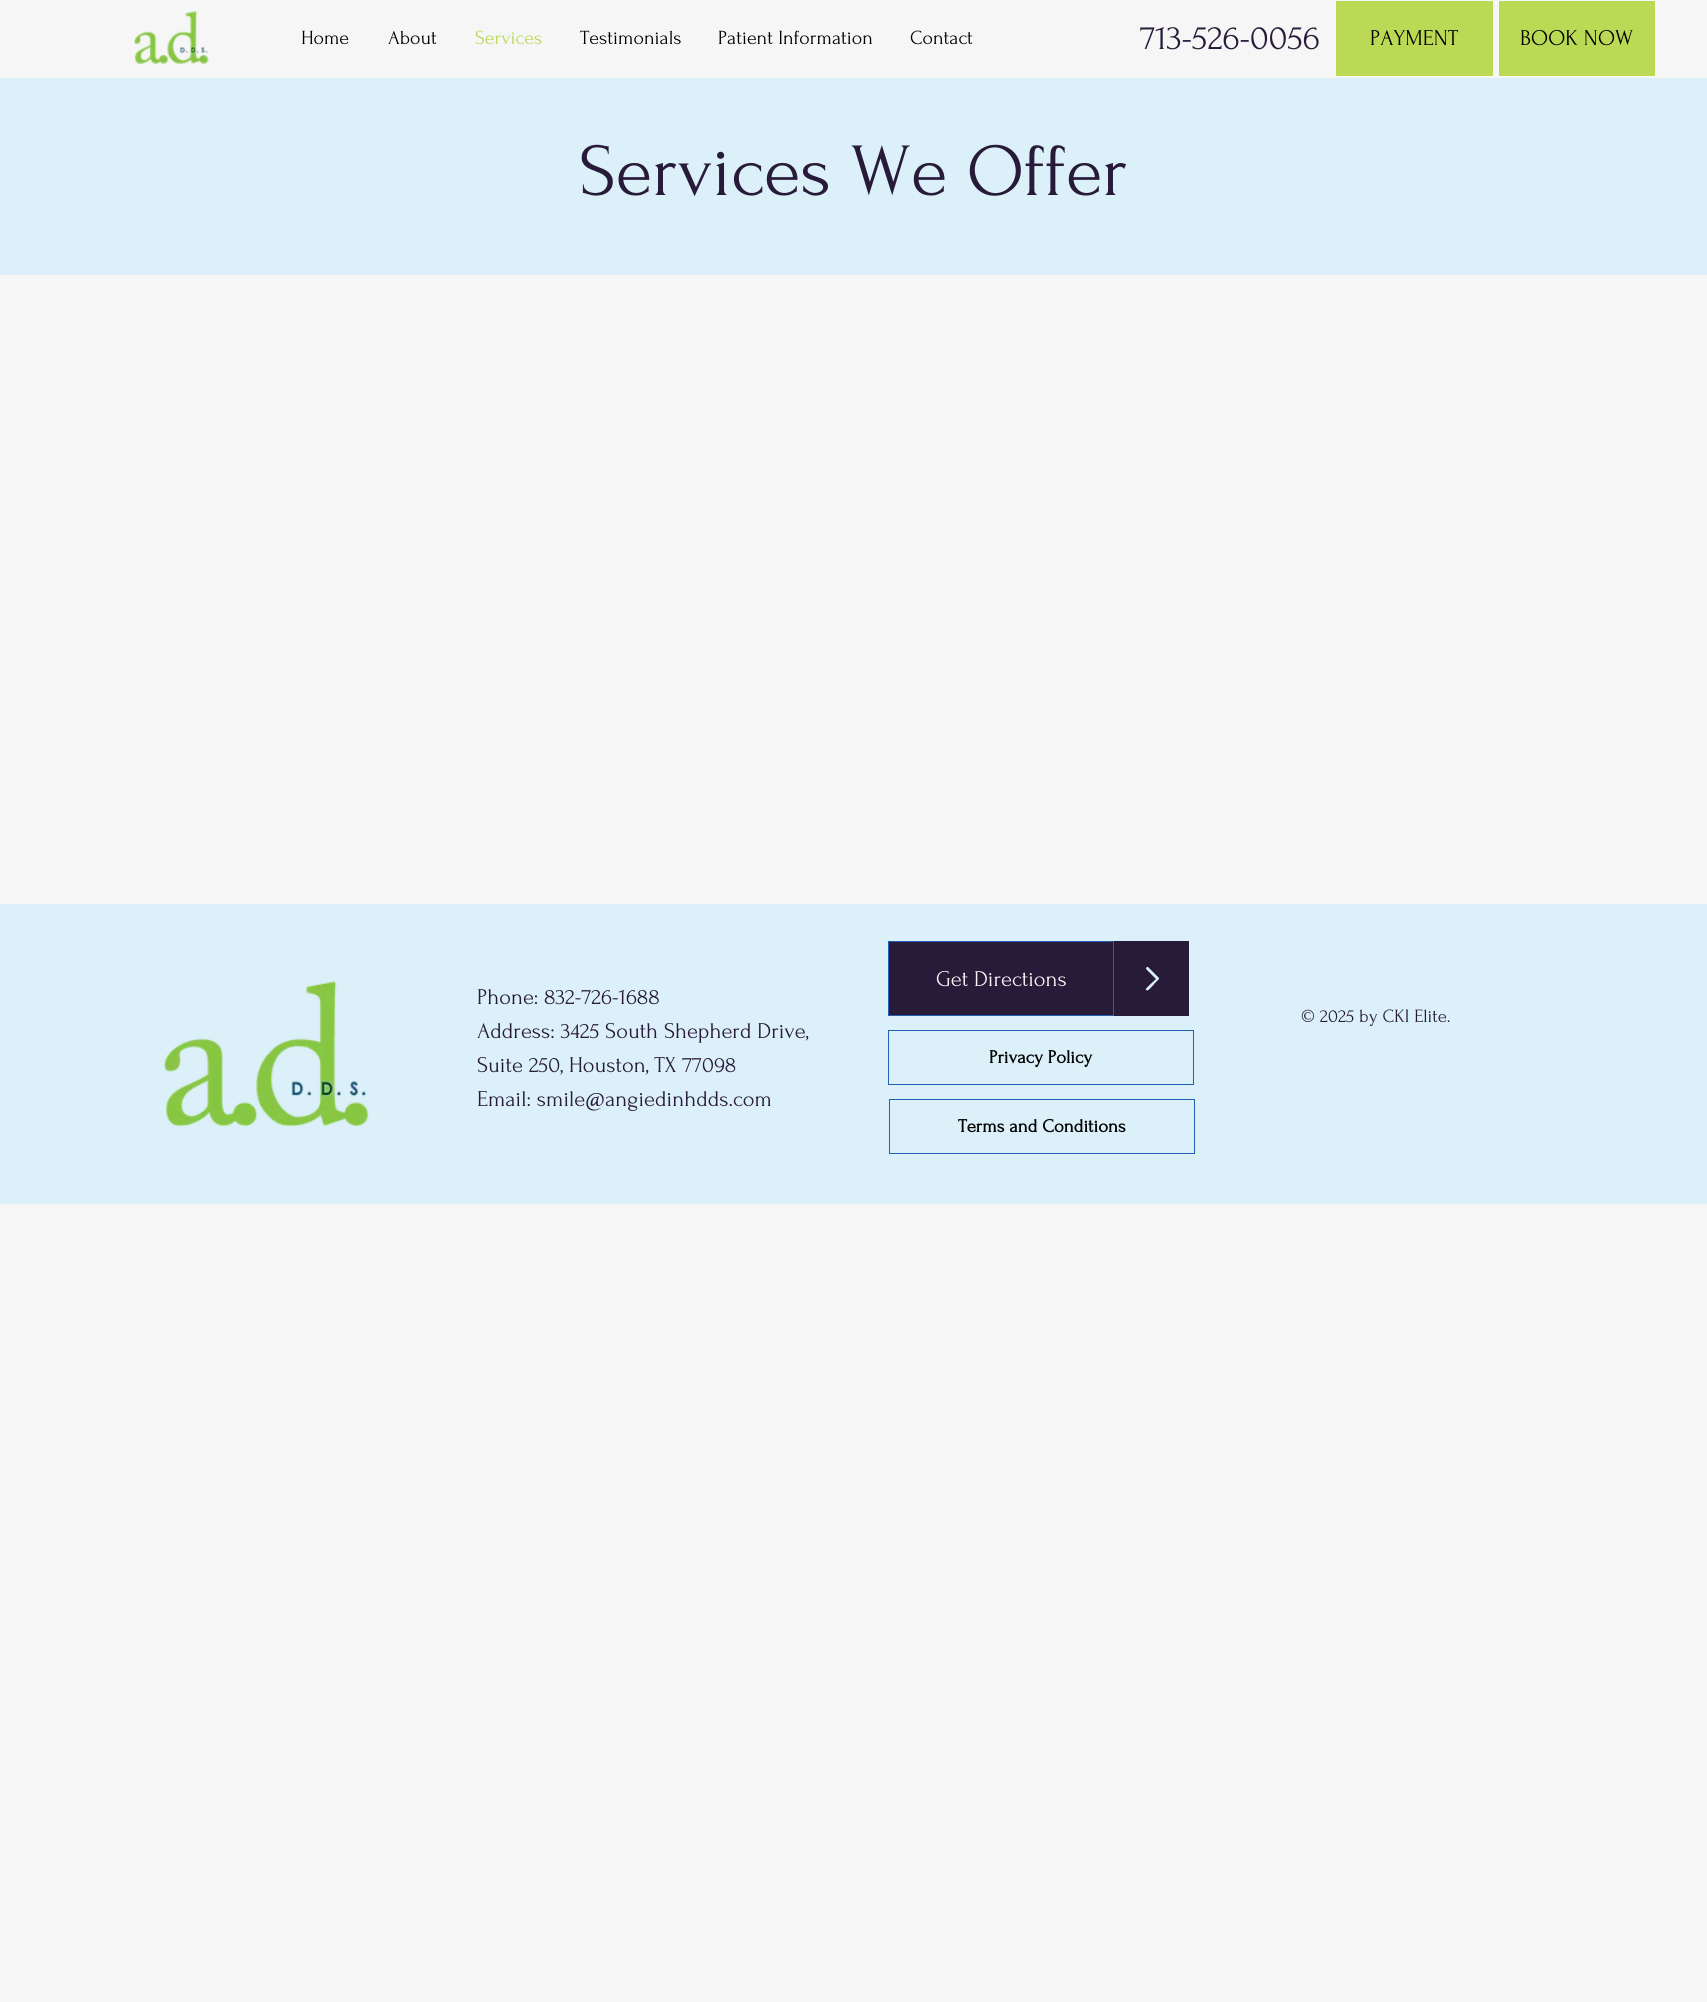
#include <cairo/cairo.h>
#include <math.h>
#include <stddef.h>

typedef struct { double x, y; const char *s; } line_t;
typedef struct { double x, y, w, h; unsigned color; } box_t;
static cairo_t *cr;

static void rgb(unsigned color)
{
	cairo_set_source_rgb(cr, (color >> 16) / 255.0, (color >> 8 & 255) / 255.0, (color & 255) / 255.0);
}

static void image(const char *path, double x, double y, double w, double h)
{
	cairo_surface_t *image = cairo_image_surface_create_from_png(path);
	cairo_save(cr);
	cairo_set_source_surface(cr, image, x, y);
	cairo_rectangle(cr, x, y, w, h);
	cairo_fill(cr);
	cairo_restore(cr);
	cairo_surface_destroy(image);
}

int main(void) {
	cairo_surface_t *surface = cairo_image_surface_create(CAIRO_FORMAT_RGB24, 1707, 2002);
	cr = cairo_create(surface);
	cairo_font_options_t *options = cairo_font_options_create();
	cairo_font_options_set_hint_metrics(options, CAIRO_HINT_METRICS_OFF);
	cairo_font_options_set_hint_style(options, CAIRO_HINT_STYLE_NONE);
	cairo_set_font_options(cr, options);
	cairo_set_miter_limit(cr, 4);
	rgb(0xf6f6f6);
	cairo_paint(cr);
	image("img/1.png", 134, 11, 75, 53);
	{
		static const box_t items[] = {
			{1336, 1, 157, 75, 0xbada55},
			{1499, 1, 156, 75, 0xbada55},
			{0, 78, 1707, 197, 0xdbf0f9},
			{0, 904, 1707, 300, 0xdbf0f9},
		};
		for (size_t i = 0; i < sizeof items / sizeof *items; i++) {
			rgb(items[i].color);
			cairo_rectangle(cr, items[i].x, items[i].y, items[i].w, items[i].h);
			cairo_fill(cr);
		}
	}
	image("img/2.png", 163, 981, 206, 146);
	rgb(0x281a39);
	cairo_rectangle(cr, 888.5, 941.5, 225, 74);
	cairo_fill_preserve(cr);
	rgb(0x2061b7);
	cairo_set_line_width(cr, 1);
	cairo_stroke(cr);
	rgb(0x281a39);
	cairo_rectangle(cr, 1114, 941, 75, 75);
	cairo_fill(cr);
	rgb(0xdbf0f9);
	cairo_new_path(cr);
	cairo_move_to(cr, 1147.5, 990.5);
	cairo_line_to(cr, 1146, 990);
	cairo_curve_to(cr, 1145, 988.5, 1149, 986, 1149.5, 985);
	cairo_line_to(cr, 1156, 979);
	cairo_line_to(cr, 1146, 969);
	cairo_curve_to(cr, 1146, 968.5, 1146, 967.5, 1147, 967);
	cairo_line_to(cr, 1148, 967);
	cairo_line_to(cr, 1159, 978);
	cairo_line_to(cr, 1159, 979);
	cairo_line_to(cr, 1155, 983);
	cairo_curve_to(cr, 1154, 984.5, 1148.5, 990.5, 1147.5, 990.5);
	cairo_close_path(cr);
	cairo_fill(cr);
	cairo_rectangle(cr, 888.5, 1030.5, 305, 54);
	rgb(0x2061b7);
	cairo_stroke(cr);
	cairo_rectangle(cr, 889.5, 1099.5, 305, 54);
	cairo_stroke(cr);
	cairo_select_font_face(cr, "Forum", CAIRO_FONT_SLANT_NORMAL, CAIRO_FONT_WEIGHT_NORMAL);
	cairo_set_font_size(cr, 20);
	rgb(0x000000);
	cairo_move_to(cr, 301, 44);
	cairo_show_text(cr, "Home");
	cairo_move_to(cr, 388, 44);
	cairo_show_text(cr, "About");
	rgb(0xbada55);
	cairo_move_to(cr, 475, 44);
	cairo_show_text(cr, "Services");
	rgb(0x000000);
	{
		static const line_t items[] = {
			{580, 44, "Testimonials"},
			{718, 44, "Patient Information"},
			{910, 44, "Contact"},
		};
		for (size_t i = 0; i < sizeof items / sizeof *items; i++) {
			cairo_move_to(cr, items[i].x, items[i].y);
			cairo_show_text(cr, items[i].s);
		}
	}
	cairo_set_font_size(cr, 35);
	rgb(0x281a39);
	cairo_move_to(cr, 1140, 49);
	cairo_show_text(cr, "713-526-0056");
	cairo_set_font_size(cr, 22.5);
	rgb(0x000000);
	cairo_move_to(cr, 1370, 45);
	cairo_show_text(cr, "PAYMENT");
	cairo_move_to(cr, 1520, 45);
	cairo_show_text(cr, "BOOK NOW");
	cairo_set_font_size(cr, 75);
	rgb(0x281a39);
	cairo_move_to(cr, 579, 195);
	cairo_show_text(cr, "Services We Offer");
	cairo_set_font_size(cr, 22.5);
	{
		static const line_t items[] = {
			{477, 1004, "Phone: 832-726-1688"},
			{477, 1038, "Address: 3425 South Shepherd Drive,"},
			{477, 1072, "Suite 250, Houston, TX 77098"},
			{477, 1106, "Email: smile@angiedinhdds.com"},
		};
		for (size_t i = 0; i < sizeof items / sizeof *items; i++) {
			cairo_move_to(cr, items[i].x, items[i].y);
			cairo_show_text(cr, items[i].s);
		}
	}
	rgb(0xf6f6f6);
	cairo_move_to(cr, 936, 986);
	cairo_show_text(cr, "Get Directions");
	cairo_select_font_face(cr, "Forum", CAIRO_FONT_SLANT_NORMAL, CAIRO_FONT_WEIGHT_BOLD);
	cairo_set_font_size(cr, 18.75);
	rgb(0x000000);
	cairo_move_to(cr, 989, 1063);
	cairo_show_text(cr, "Privacy Policy");
	cairo_move_to(cr, 958, 1132);
	cairo_show_text(cr, "Terms and Conditions");
	cairo_select_font_face(cr, "Forum", CAIRO_FONT_SLANT_NORMAL, CAIRO_FONT_WEIGHT_NORMAL);
	rgb(0x281a39);
	cairo_move_to(cr, 1301, 1022);
	cairo_show_text(cr, "© 2025 by CKI Elite.");
	cairo_surface_write_to_png(surface, "page.png");
	cairo_font_options_destroy(options);
	cairo_destroy(cr);
	cairo_surface_destroy(surface);
	return 0;
}
